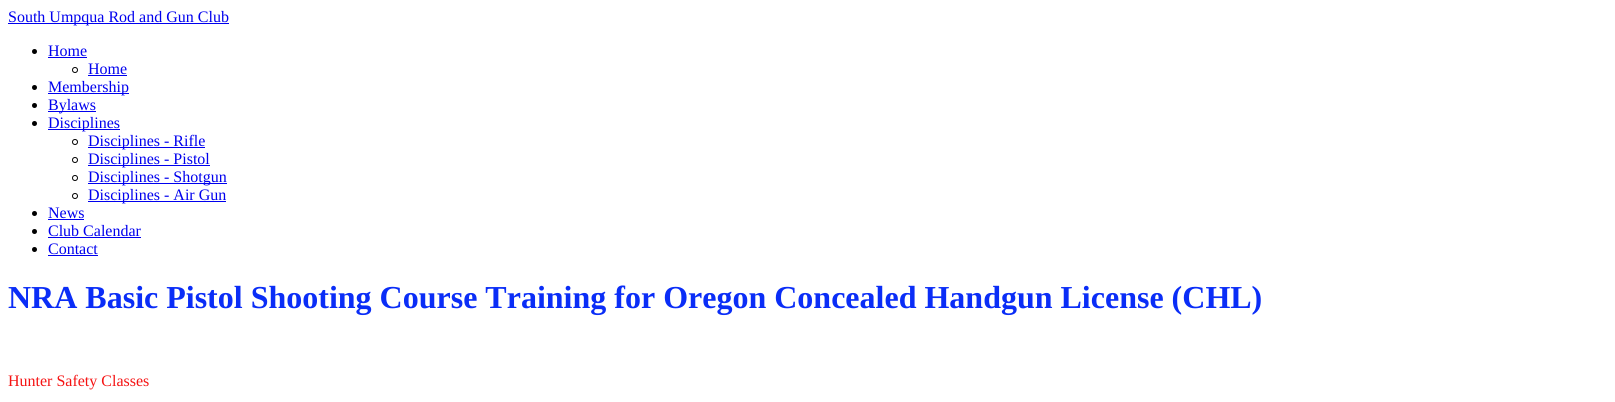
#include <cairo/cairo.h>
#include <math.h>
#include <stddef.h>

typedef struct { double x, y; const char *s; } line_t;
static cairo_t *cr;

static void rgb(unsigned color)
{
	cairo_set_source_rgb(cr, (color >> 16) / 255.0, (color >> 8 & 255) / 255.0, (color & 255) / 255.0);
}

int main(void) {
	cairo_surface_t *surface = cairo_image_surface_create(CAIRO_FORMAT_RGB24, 1615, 402);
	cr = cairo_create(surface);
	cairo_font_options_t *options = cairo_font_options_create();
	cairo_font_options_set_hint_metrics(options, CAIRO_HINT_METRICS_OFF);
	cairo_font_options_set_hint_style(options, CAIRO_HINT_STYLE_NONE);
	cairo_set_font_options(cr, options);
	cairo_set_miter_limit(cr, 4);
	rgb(0xffffff);
	cairo_paint(cr);
	rgb(0x0000ee);
	cairo_rectangle(cr, 8, 23, 221, 1);
	cairo_fill(cr);
	rgb(0x000000);
	cairo_arc(cr, 34.5, 51.5, 2.5, 0, 2 * M_PI);
	cairo_fill(cr);
	rgb(0x0000ee);
	cairo_rectangle(cr, 48, 57, 39, 1);
	cairo_fill(cr);
	cairo_arc(cr, 75, 70, 2.5, 0, 2 * M_PI);
	rgb(0x000000);
	cairo_set_line_width(cr, 1);
	cairo_stroke(cr);
	rgb(0x0000ee);
	cairo_rectangle(cr, 88, 75, 39, 1);
	cairo_fill(cr);
	rgb(0x000000);
	cairo_arc(cr, 34.5, 87.5, 2.5, 0, 2 * M_PI);
	cairo_fill(cr);
	rgb(0x0000ee);
	cairo_rectangle(cr, 48, 93, 81, 1);
	cairo_fill(cr);
	rgb(0x000000);
	cairo_arc(cr, 34.5, 105.5, 2.5, 0, 2 * M_PI);
	cairo_fill(cr);
	rgb(0x0000ee);
	cairo_rectangle(cr, 48, 111, 48, 1);
	cairo_fill(cr);
	rgb(0x000000);
	cairo_arc(cr, 34.5, 123.5, 2.5, 0, 2 * M_PI);
	cairo_fill(cr);
	rgb(0x0000ee);
	cairo_rectangle(cr, 48, 129, 72, 1);
	cairo_fill(cr);
	cairo_arc(cr, 75, 142, 2.5, 0, 2 * M_PI);
	rgb(0x000000);
	cairo_stroke(cr);
	rgb(0x0000ee);
	cairo_rectangle(cr, 88, 147, 117, 1);
	cairo_fill(cr);
	cairo_arc(cr, 75, 160, 2.5, 0, 2 * M_PI);
	rgb(0x000000);
	cairo_stroke(cr);
	rgb(0x0000ee);
	cairo_rectangle(cr, 88, 165, 122, 1);
	cairo_fill(cr);
	cairo_arc(cr, 75, 178, 2.5, 0, 2 * M_PI);
	rgb(0x000000);
	cairo_stroke(cr);
	rgb(0x0000ee);
	cairo_rectangle(cr, 88, 183, 139, 1);
	cairo_fill(cr);
	cairo_arc(cr, 75, 196, 2.5, 0, 2 * M_PI);
	rgb(0x000000);
	cairo_stroke(cr);
	rgb(0x0000ee);
	cairo_rectangle(cr, 88, 201, 138, 1);
	cairo_fill(cr);
	rgb(0x000000);
	cairo_arc(cr, 34.5, 213.5, 2.5, 0, 2 * M_PI);
	cairo_fill(cr);
	rgb(0x0000ee);
	cairo_rectangle(cr, 48, 219, 36, 1);
	cairo_fill(cr);
	rgb(0x000000);
	cairo_arc(cr, 34.5, 231.5, 2.5, 0, 2 * M_PI);
	cairo_fill(cr);
	rgb(0x0000ee);
	cairo_rectangle(cr, 48, 237, 93, 1);
	cairo_fill(cr);
	rgb(0x000000);
	cairo_arc(cr, 34.5, 249.5, 2.5, 0, 2 * M_PI);
	cairo_fill(cr);
	rgb(0x0000ee);
	cairo_rectangle(cr, 48, 255, 50, 1);
	cairo_fill(cr);
	cairo_select_font_face(cr, "Liberation Serif", CAIRO_FONT_SLANT_NORMAL, CAIRO_FONT_WEIGHT_NORMAL);
	cairo_set_font_size(cr, 16);
	{
		static const line_t items[] = {
			{8, 22, "South Umpqua Rod and Gun Club"},
			{48, 56, "Home"},
			{88, 74, "Home"},
			{48, 92, "Membership"},
			{48, 110, "Bylaws"},
			{48, 128, "Disciplines"},
			{88, 146, "Disciplines - Rifle"},
			{88, 164, "Disciplines - Pistol"},
			{88, 182, "Disciplines - Shotgun"},
			{88, 200, "Disciplines - Air Gun"},
			{48, 218, "News"},
			{48, 236, "Club Calendar"},
			{48, 254, "Contact"},
		};
		for (size_t i = 0; i < sizeof items / sizeof *items; i++) {
			cairo_move_to(cr, items[i].x, items[i].y);
			cairo_show_text(cr, items[i].s);
		}
	}
	cairo_select_font_face(cr, "Liberation Serif", CAIRO_FONT_SLANT_NORMAL, CAIRO_FONT_WEIGHT_BOLD);
	cairo_set_font_size(cr, 32);
	rgb(0x0a2df7);
	cairo_move_to(cr, 8, 308);
	cairo_show_text(cr, "NRA Basic Pistol Shooting Course Training for Oregon Concealed Handgun License (CHL)");
	cairo_select_font_face(cr, "Liberation Serif", CAIRO_FONT_SLANT_NORMAL, CAIRO_FONT_WEIGHT_NORMAL);
	cairo_set_font_size(cr, 16);
	rgb(0xf51313);
	cairo_move_to(cr, 8, 386);
	cairo_show_text(cr, "Hunter Safety Classes");
	cairo_surface_write_to_png(surface, "page.png");
	cairo_font_options_destroy(options);
	cairo_destroy(cr);
	cairo_surface_destroy(surface);
	return 0;
}
